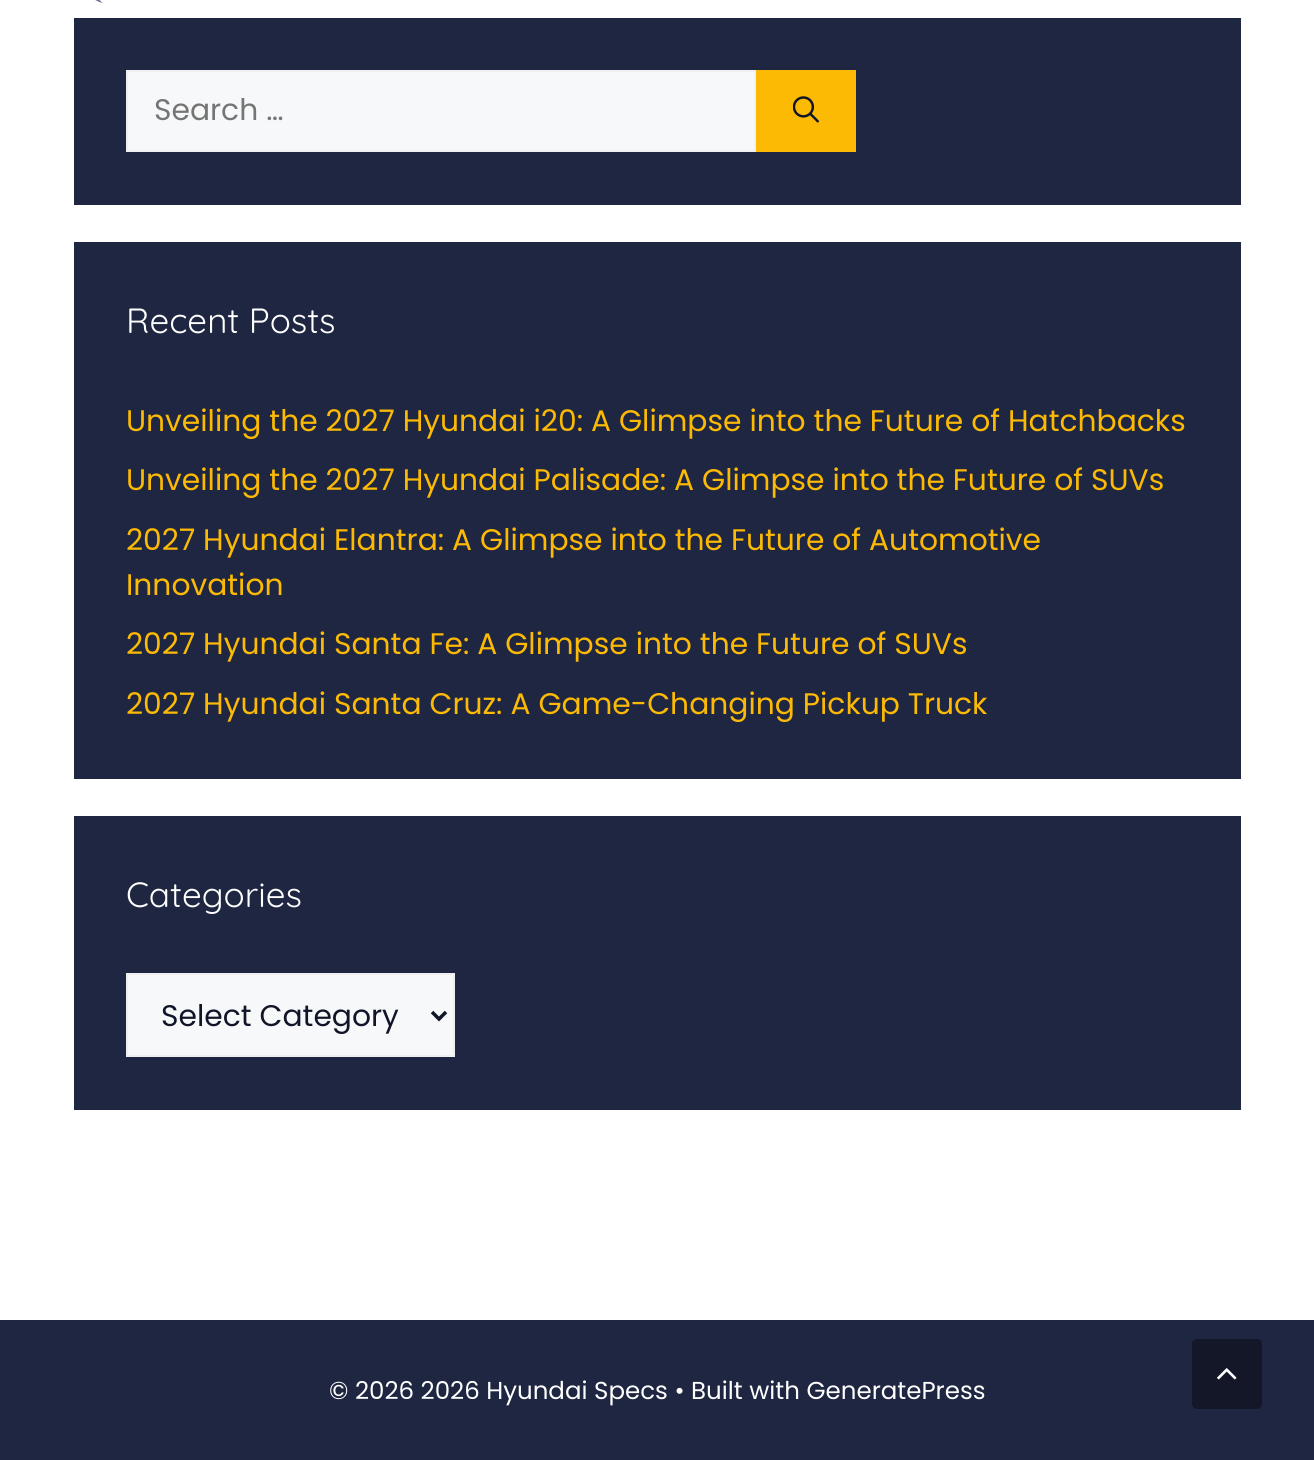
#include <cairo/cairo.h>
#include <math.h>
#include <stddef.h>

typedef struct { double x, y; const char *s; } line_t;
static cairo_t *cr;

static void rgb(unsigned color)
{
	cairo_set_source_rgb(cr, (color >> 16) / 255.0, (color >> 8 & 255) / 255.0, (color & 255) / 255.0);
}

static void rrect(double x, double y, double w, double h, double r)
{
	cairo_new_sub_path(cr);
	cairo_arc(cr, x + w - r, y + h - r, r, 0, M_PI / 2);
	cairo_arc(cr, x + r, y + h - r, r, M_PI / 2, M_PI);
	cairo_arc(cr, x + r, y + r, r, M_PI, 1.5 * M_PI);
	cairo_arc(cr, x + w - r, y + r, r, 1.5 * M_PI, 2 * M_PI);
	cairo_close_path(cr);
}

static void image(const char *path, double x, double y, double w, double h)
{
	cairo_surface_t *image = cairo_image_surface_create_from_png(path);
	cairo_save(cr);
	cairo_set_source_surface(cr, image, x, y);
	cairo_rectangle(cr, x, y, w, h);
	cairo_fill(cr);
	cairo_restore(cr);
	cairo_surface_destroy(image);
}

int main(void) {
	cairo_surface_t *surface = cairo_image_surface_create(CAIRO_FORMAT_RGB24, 1314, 1460);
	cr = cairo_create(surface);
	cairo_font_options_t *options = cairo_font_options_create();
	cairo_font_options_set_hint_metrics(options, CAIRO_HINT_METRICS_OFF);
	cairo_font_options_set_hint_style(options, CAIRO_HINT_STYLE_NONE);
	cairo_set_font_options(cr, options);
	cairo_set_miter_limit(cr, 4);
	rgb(0xffffff);
	cairo_paint(cr);
	image("img/1.png", 95, 0, 8, 4);
	rgb(0x1f2641);
	cairo_rectangle(cr, 74, 18, 1167, 187);
	cairo_fill(cr);
	rgb(0xf7f8f9);
	cairo_rectangle(cr, 127, 71, 628, 80);
	cairo_fill_preserve(cr);
	rgb(0xf0f0f0);
	cairo_stroke(cr);
	rgb(0xfcba04);
	cairo_rectangle(cr, 756, 70, 100, 82);
	cairo_fill(cr);
	image("img/2.png", 793, 96, 26, 27);
	rgb(0x1f2641);
	cairo_rectangle(cr, 74, 242, 1167, 537);
	cairo_fill(cr);
	cairo_rectangle(cr, 74, 816, 1167, 294);
	cairo_fill(cr);
	rgb(0xf7f8f9);
	cairo_rectangle(cr, 127, 974, 327, 82);
	cairo_fill_preserve(cr);
	rgb(0xf0f0f0);
	cairo_stroke(cr);
	cairo_new_path(cr);
	cairo_move_to(cr, 432, 1012);
	cairo_line_to(cr, 439, 1019);
	cairo_line_to(cr, 446, 1012);
	rgb(0x101528);
	cairo_set_line_width(cr, 3.5);
	cairo_stroke(cr);
	rgb(0x1f2641);
	cairo_rectangle(cr, 0, 1320, 1314, 140);
	cairo_fill(cr);
	rgb(0x131727);
	rrect(1192, 1339, 70, 70, 5);
	cairo_fill(cr);
	image("img/3.png", 1217, 1368, 20, 12);
	cairo_select_font_face(cr, "Poppins", CAIRO_FONT_SLANT_NORMAL, CAIRO_FONT_WEIGHT_NORMAL);
	cairo_set_font_size(cr, 29.75);
	rgb(0x757575);
	cairo_move_to(cr, 154, 120);
	cairo_show_text(cr, "Search …");
	cairo_select_font_face(cr, "Quicksand", CAIRO_FONT_SLANT_NORMAL, CAIRO_FONT_WEIGHT_NORMAL);
	cairo_set_font_size(cr, 35);
	rgb(0xffffff);
	cairo_move_to(cr, 126, 333);
	cairo_show_text(cr, "Recent Posts");
	cairo_select_font_face(cr, "Poppins", CAIRO_FONT_SLANT_NORMAL, CAIRO_FONT_WEIGHT_NORMAL);
	cairo_set_font_size(cr, 29.75);
	rgb(0xfcba04);
	{
		static const line_t items[] = {
			{126, 431, "Unveiling the 2027 Hyundai i20: A Glimpse into the Future of Hatchbacks"},
			{126, 490, "Unveiling the 2027 Hyundai Palisade: A Glimpse into the Future of SUVs"},
			{126, 550, "2027 Hyundai Elantra: A Glimpse into the Future of Automotive"},
			{126, 595, "Innovation"},
			{126, 654, "2027 Hyundai Santa Fe: A Glimpse into the Future of SUVs"},
			{126, 714, "2027 Hyundai Santa Cruz: A Game-Changing Pickup Truck"},
		};
		for (size_t i = 0; i < sizeof items / sizeof *items; i++) {
			cairo_move_to(cr, items[i].x, items[i].y);
			cairo_show_text(cr, items[i].s);
		}
	}
	cairo_select_font_face(cr, "Quicksand", CAIRO_FONT_SLANT_NORMAL, CAIRO_FONT_WEIGHT_NORMAL);
	cairo_set_font_size(cr, 35);
	rgb(0xffffff);
	cairo_move_to(cr, 126, 907);
	cairo_show_text(cr, "Categories");
	cairo_select_font_face(cr, "Poppins", CAIRO_FONT_SLANT_NORMAL, CAIRO_FONT_WEIGHT_NORMAL);
	cairo_set_font_size(cr, 29.75);
	rgb(0x101528);
	cairo_move_to(cr, 161, 1026);
	cairo_show_text(cr, "Select Category");
	cairo_set_font_size(cr, 24.5);
	rgb(0xffffff);
	cairo_move_to(cr, 329, 1399);
	cairo_show_text(cr, "© 2026 2026 Hyundai Specs • Built with GeneratePress");
	cairo_surface_write_to_png(surface, "page.png");
	cairo_font_options_destroy(options);
	cairo_destroy(cr);
	cairo_surface_destroy(surface);
	return 0;
}
